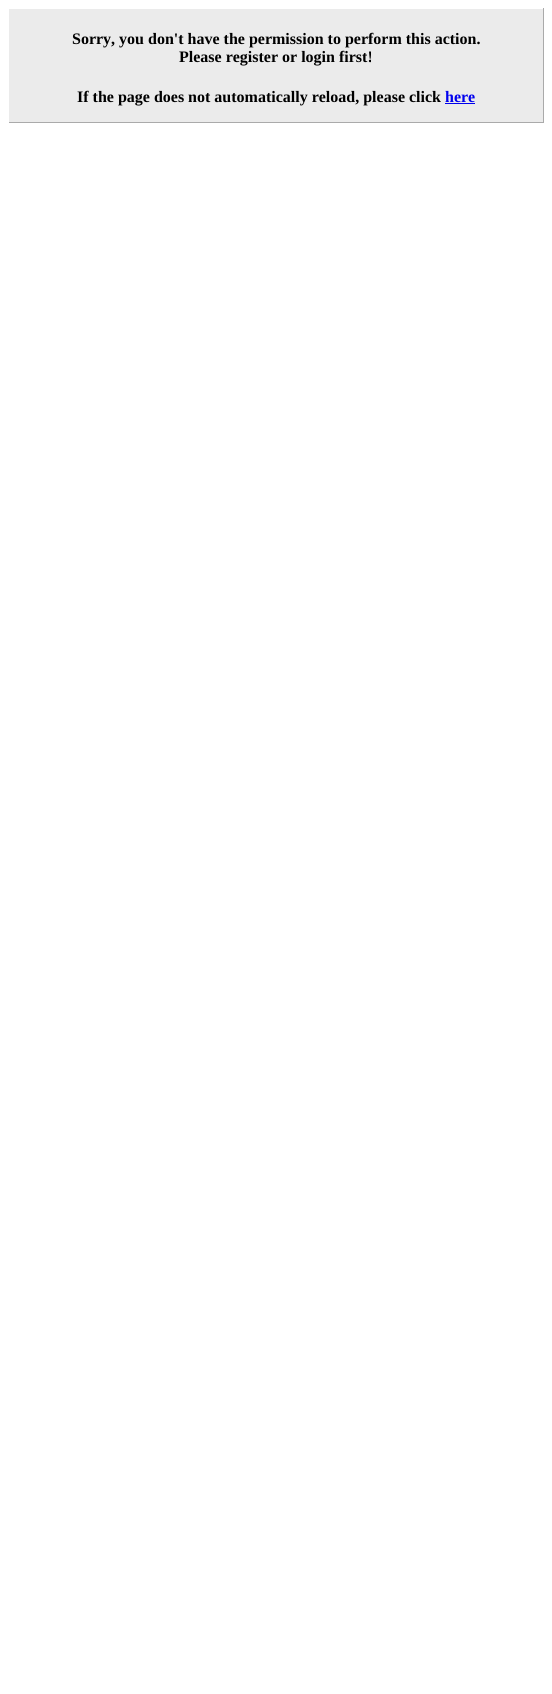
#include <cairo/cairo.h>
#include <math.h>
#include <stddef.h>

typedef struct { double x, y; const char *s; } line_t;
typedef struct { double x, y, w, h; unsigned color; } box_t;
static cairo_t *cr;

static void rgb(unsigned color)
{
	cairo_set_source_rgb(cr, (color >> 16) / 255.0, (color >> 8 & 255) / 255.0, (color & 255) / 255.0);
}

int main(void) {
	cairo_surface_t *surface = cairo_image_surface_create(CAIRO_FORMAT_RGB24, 552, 1694);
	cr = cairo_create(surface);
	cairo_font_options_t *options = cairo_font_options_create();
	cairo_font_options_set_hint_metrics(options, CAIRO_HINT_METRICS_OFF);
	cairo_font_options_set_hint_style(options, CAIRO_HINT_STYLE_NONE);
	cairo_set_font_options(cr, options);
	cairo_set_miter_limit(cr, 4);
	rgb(0xffffff);
	cairo_paint(cr);
	{
		static const box_t items[] = {
			{9, 9, 534, 113, 0xebebeb},
			{543, 8, 1, 115, 0xaaaaaa},
			{8, 122, 536, 1, 0xaaaaaa},
			{8, 122, 1, 1, 0xffffff},
			{445, 103, 30, 1, 0x0000ee},
		};
		for (size_t i = 0; i < sizeof items / sizeof *items; i++) {
			rgb(items[i].color);
			cairo_rectangle(cr, items[i].x, items[i].y, items[i].w, items[i].h);
			cairo_fill(cr);
		}
	}
	cairo_select_font_face(cr, "Liberation Serif", CAIRO_FONT_SLANT_NORMAL, CAIRO_FONT_WEIGHT_BOLD);
	cairo_set_font_size(cr, 16);
	rgb(0x000000);
	{
		static const line_t items[] = {
			{72, 44, "Sorry, you don't have the permission to perform this action."},
			{179, 62, "Please register or login first!"},
			{77, 102, "If the page does not automatically reload, please click"},
		};
		for (size_t i = 0; i < sizeof items / sizeof *items; i++) {
			cairo_move_to(cr, items[i].x, items[i].y);
			cairo_show_text(cr, items[i].s);
		}
	}
	rgb(0x0000ee);
	cairo_move_to(cr, 445, 102);
	cairo_show_text(cr, "here");
	cairo_surface_write_to_png(surface, "page.png");
	cairo_font_options_destroy(options);
	cairo_destroy(cr);
	cairo_surface_destroy(surface);
	return 0;
}
